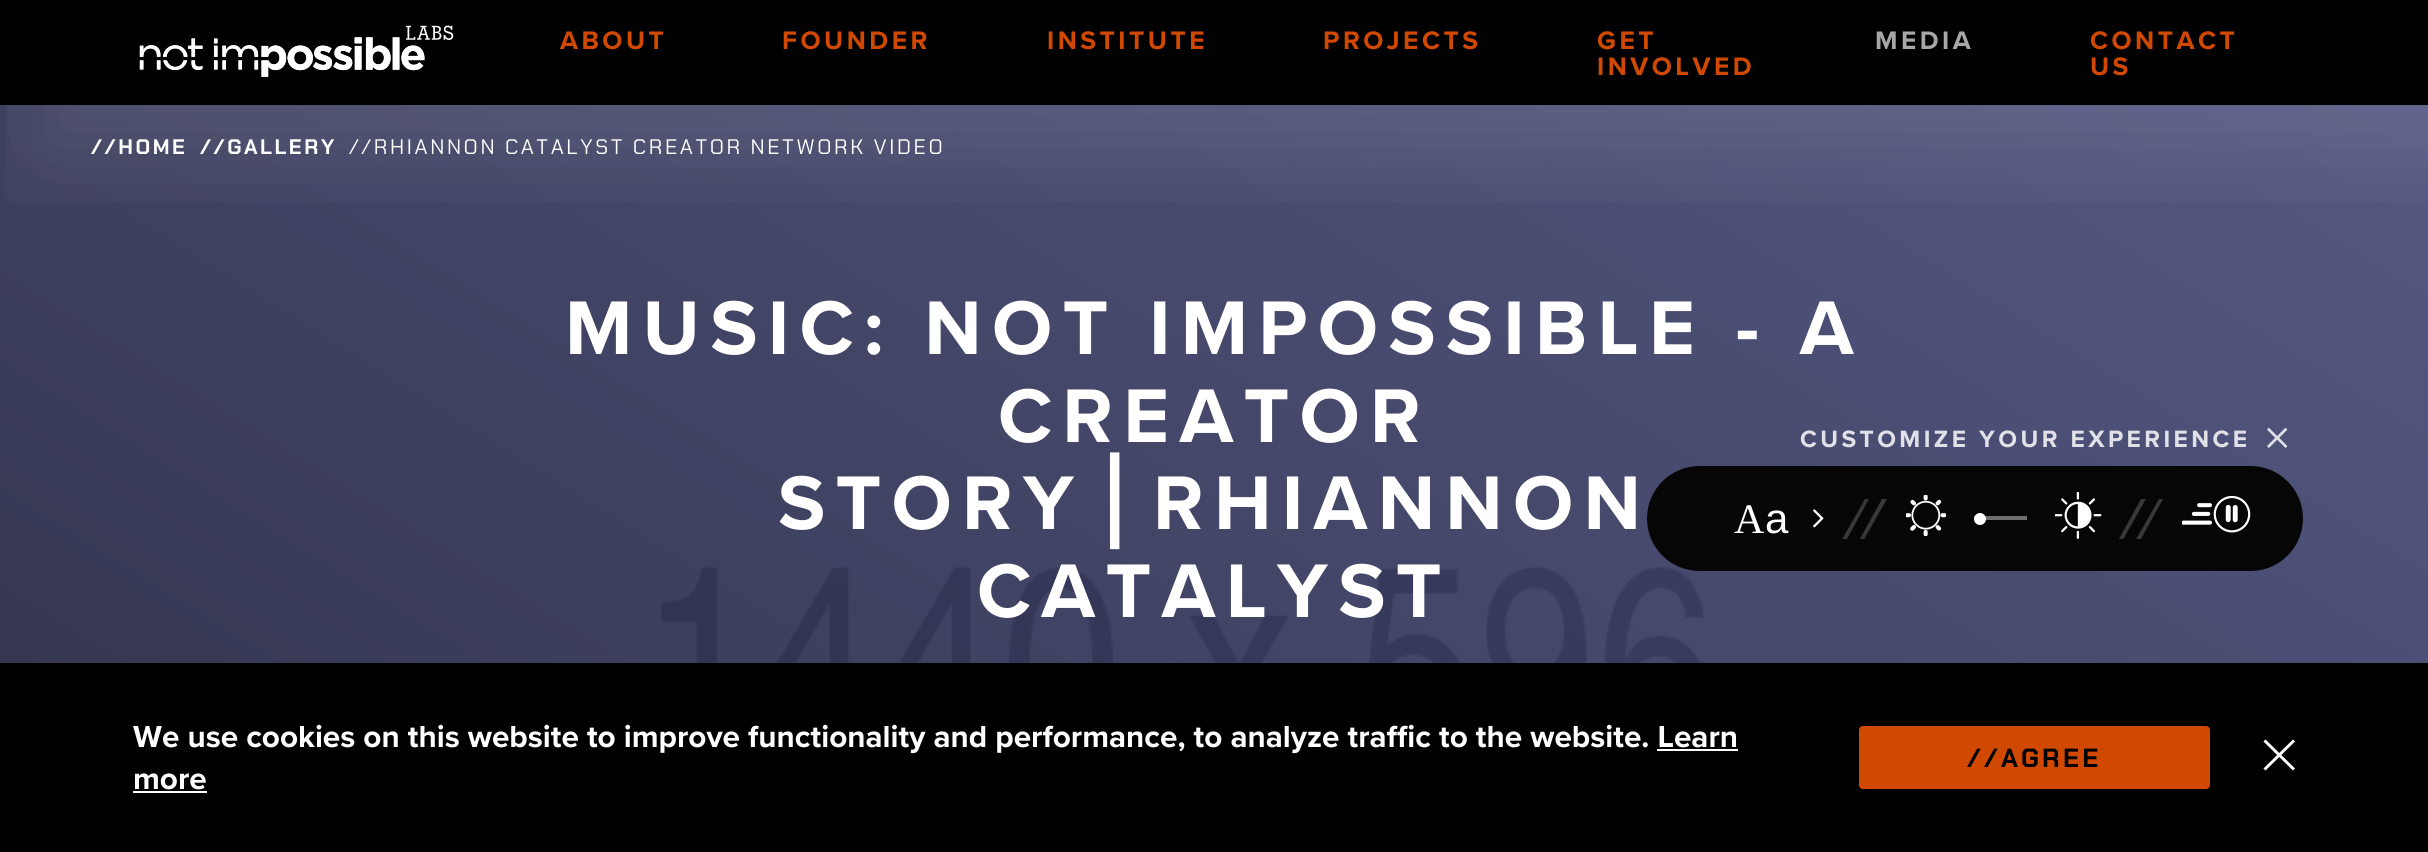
#include <cairo/cairo.h>
#include <math.h>
#include <stddef.h>

typedef struct { double x, y; const char *s; } line_t;
static cairo_t *cr;

static void rgb(unsigned color)
{
	cairo_set_source_rgb(cr, (color >> 16) / 255.0, (color >> 8 & 255) / 255.0, (color & 255) / 255.0);
}

static void tracked(double x, double y, const char *s, double letter, double word)
{
	cairo_move_to(cr, x, y);
	while (*s) {
		char ch[5] = {0};
		int n = 0;
		do ch[n++] = *s++; while ((*s & 0xC0) == 0x80);
		cairo_show_text(cr, ch);
		cairo_rel_move_to(cr, letter + word * (*ch == ' '), 0);
	}
}

static void rrect(double x, double y, double w, double h, double r)
{
	cairo_new_sub_path(cr);
	cairo_arc(cr, x + w - r, y + h - r, r, 0, M_PI / 2);
	cairo_arc(cr, x + r, y + h - r, r, M_PI / 2, M_PI);
	cairo_arc(cr, x + r, y + r, r, M_PI, 1.5 * M_PI);
	cairo_arc(cr, x + w - r, y + r, r, 1.5 * M_PI, 2 * M_PI);
	cairo_close_path(cr);
}

static void soft_shadow(double x, double y, double w, double h, double r, double blur, double alpha)
{
	cairo_push_group_with_content(cr, CAIRO_CONTENT_ALPHA);
	cairo_set_operator(cr, CAIRO_OPERATOR_SOURCE);
	for (int i = 15; i >= -15 && fmin(w, h) + blur * i / 3 > 0; i -= 2) {
		double e = blur * i / 6;
		cairo_set_source_rgba(cr, 0, 0, 0, alpha * erfc((i - 1) / 8.5) / 2);
		rrect(x - e, y - e, w + 2 * e, h + 2 * e, fmax(0, fmin(r + e + blur * .6, fmin(w, h) / 2 + e)));
		cairo_fill(cr);
	}
	cairo_pattern_t *soft = cairo_pop_group(cr);
	cairo_mask(cr, soft);
	cairo_pattern_destroy(soft);
}

static void image(const char *path, double x, double y, double w, double h)
{
	cairo_surface_t *image = cairo_image_surface_create_from_png(path);
	cairo_save(cr);
	cairo_set_source_surface(cr, image, x, y);
	cairo_rectangle(cr, x, y, w, h);
	cairo_fill(cr);
	cairo_restore(cr);
	cairo_surface_destroy(image);
}

int main(void) {
	cairo_surface_t *surface = cairo_image_surface_create(CAIRO_FORMAT_RGB24, 2428, 852);
	cr = cairo_create(surface);
	cairo_font_options_t *options = cairo_font_options_create();
	cairo_font_options_set_hint_metrics(options, CAIRO_HINT_METRICS_OFF);
	cairo_font_options_set_hint_style(options, CAIRO_HINT_STYLE_NONE);
	cairo_set_font_options(cr, options);
	cairo_set_miter_limit(cr, 4);
	rgb(0x000000);
	cairo_paint(cr);
	image("img/2.png", 0, 105, 2428, 558);
	cairo_save(cr);
	cairo_rectangle(cr, 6, 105, 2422, 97);
	cairo_clip(cr);
	rgb(0xffffff);
	soft_shadow(35, 53, 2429, 105, 0, 52.5, 0.1);
	cairo_restore(cr);
	image("img/1.png", 139, 25, 315, 52);
	image("img/3.png", 2267, 427, 21, 21);
	rgb(0x060606);
	rrect(1647, 466, 656, 105, 52.5);
	cairo_fill(cr);
	image("img/4.png", 1709, 510, 1, 1);
	image("img/5.png", 1813, 509, 11, 19);
	cairo_save(cr);
	cairo_rectangle(cr, 1832, 499, 56, 40);
	cairo_clip(cr);
	rgb(0x383838);
	cairo_new_path(cr);
	cairo_move_to(cr, 1882, 499);
	cairo_line_to(cr, 1887, 499);
	cairo_line_to(cr, 1854, 557);
	cairo_line_to(cr, 1850, 557);
	cairo_close_path(cr);
	cairo_move_to(cr, 1865, 499);
	cairo_line_to(cr, 1869, 499);
	cairo_line_to(cr, 1837, 557);
	cairo_line_to(cr, 1832, 557);
	cairo_close_path(cr);
	cairo_fill(cr);
	cairo_restore(cr);
	image("img/6.png", 1906, 495, 40, 41);
	rgb(0x6f6f6f);
	cairo_rectangle(cr, 1974, 516, 53, 4);
	cairo_fill(cr);
	rgb(0xffffff);
	cairo_arc(cr, 1980, 519, 6, 0, 2 * M_PI);
	cairo_fill(cr);
	image("img/7.png", 2055, 492, 47, 47);
	cairo_save(cr);
	cairo_rectangle(cr, 2109, 499, 56, 40);
	cairo_clip(cr);
	rgb(0x383838);
	cairo_new_path(cr);
	cairo_move_to(cr, 2159, 499);
	cairo_line_to(cr, 2163, 499);
	cairo_line_to(cr, 2131, 557);
	cairo_line_to(cr, 2126, 557);
	cairo_close_path(cr);
	cairo_move_to(cr, 2141, 499);
	cairo_line_to(cr, 2146, 499);
	cairo_line_to(cr, 2113, 557);
	cairo_line_to(cr, 2109, 557);
	cairo_close_path(cr);
	cairo_fill(cr);
	cairo_restore(cr);
	image("img/8.png", 2182, 495, 69, 38);
	cairo_rectangle(cr, 1657, 749, 81, 2);
	cairo_fill(cr);
	cairo_rectangle(cr, 133, 791, 74, 2);
	cairo_fill(cr);
	rgb(0xd14900);
	rrect(1859, 726, 351, 63, 4);
	cairo_fill(cr);
	cairo_new_path(cr);
	cairo_move_to(cr, 2293, 741.5);
	cairo_line_to(cr, 2265.5, 768.5);
	cairo_move_to(cr, 2293, 768.5);
	cairo_line_to(cr, 2265.5, 741.5);
	rgb(0xffffff);
	cairo_set_line_width(cr, 2.9);
	cairo_set_line_cap(cr, CAIRO_LINE_CAP_SQUARE);
	cairo_stroke(cr);
	cairo_select_font_face(cr, "Proxima Nova", CAIRO_FONT_SLANT_NORMAL, CAIRO_FONT_WEIGHT_BOLD);
	cairo_set_font_size(cr, 26.25);
	rgb(0xd14900);
	{
		static const line_t items[] = {
			{560, 49, "ABOUT"},
			{782, 49, "FOUNDER"},
			{1047, 49, "INSTITUTE"},
			{1323, 49, "PROJECTS"},
			{1597, 49, "GET"},
			{1597, 75, "INVOLVED"},
		};
		for (size_t i = 0; i < sizeof items / sizeof *items; i++) {
			tracked(items[i].x, items[i].y, items[i].s, 3.5, 0);
		}
	}
	rgb(0xa7a7a7);
	tracked(1875, 49, "MEDIA", 3.5, 0);
	rgb(0xd14900);
	tracked(2090, 49, "CONTACT", 3.5, 0);
	tracked(2090, 75, "US", 3.5, 0);
	cairo_select_font_face(cr, "Chakra Petch", CAIRO_FONT_SLANT_NORMAL, CAIRO_FONT_WEIGHT_BOLD);
	cairo_set_font_size(cr, 21);
	rgb(0xffffff);
	tracked(91, 154, "//HOME", 2.6, 0);
	tracked(200, 154, "//GALLERY", 2.6, 0);
	cairo_select_font_face(cr, "Chakra Petch", CAIRO_FONT_SLANT_NORMAL, CAIRO_FONT_WEIGHT_NORMAL);
	tracked(349, 154, "//RHIANNON CATALYST CREATOR NETWORK VIDEO", 2.6, 0);
	cairo_select_font_face(cr, "Proxima Nova", CAIRO_FONT_SLANT_NORMAL, CAIRO_FONT_WEIGHT_BOLD);
	cairo_set_font_size(cr, 78.75);
	{
		static const line_t items[] = {
			{565, 354, "MUSIC: NOT IMPOSSIBLE - A"},
			{998, 442, "CREATOR"},
			{778, 529, "STORY"},
		};
		for (size_t i = 0; i < sizeof items / sizeof *items; i++) {
			tracked(items[i].x, items[i].y, items[i].s, 10.25, 0);
		}
	}
	cairo_select_font_face(cr, "DejaVu Sans", CAIRO_FONT_SLANT_NORMAL, CAIRO_FONT_WEIGHT_BOLD);
	tracked(1084, 529, "⎪", 10.25, 0);
	cairo_select_font_face(cr, "Proxima Nova", CAIRO_FONT_SLANT_NORMAL, CAIRO_FONT_WEIGHT_BOLD);
	tracked(1153, 529, "RHIANNON", 10.25, 0);
	tracked(977, 617, "CATALYST", 10.25, 0);
	cairo_set_font_size(cr, 24.5);
	rgb(0xe1e1e7);
	tracked(1800, 447, "CUSTOMIZE YOUR EXPERIENCE", 3.4, 0);
	cairo_select_font_face(cr, "Liberation Serif", CAIRO_FONT_SLANT_NORMAL, CAIRO_FONT_WEIGHT_NORMAL);
	cairo_set_font_size(cr, 42);
	rgb(0xffffff);
	cairo_move_to(cr, 1734, 533);
	cairo_show_text(cr, "A");
	cairo_select_font_face(cr, "Liberation Sans", CAIRO_FONT_SLANT_NORMAL, CAIRO_FONT_WEIGHT_NORMAL);
	cairo_move_to(cr, 1765, 533);
	cairo_show_text(cr, "a");
	cairo_select_font_face(cr, "Proxima Nova", CAIRO_FONT_SLANT_NORMAL, CAIRO_FONT_WEIGHT_BOLD);
	cairo_set_font_size(cr, 31.5);
	cairo_move_to(cr, 133, 747);
	cairo_show_text(cr, "We use cookies on this website to improve functionality and performance, to analyze traffic to the website. Learn");
	cairo_move_to(cr, 133, 789);
	cairo_show_text(cr, "more");
	cairo_select_font_face(cr, "Chakra Petch", CAIRO_FONT_SLANT_NORMAL, CAIRO_FONT_WEIGHT_BOLD);
	cairo_set_font_size(cr, 26.25);
	rgb(0x000000);
	tracked(1967, 767, "//AGREE", 3.25, 0);
	cairo_surface_write_to_png(surface, "page.png");
	cairo_font_options_destroy(options);
	cairo_destroy(cr);
	cairo_surface_destroy(surface);
	return 0;
}
